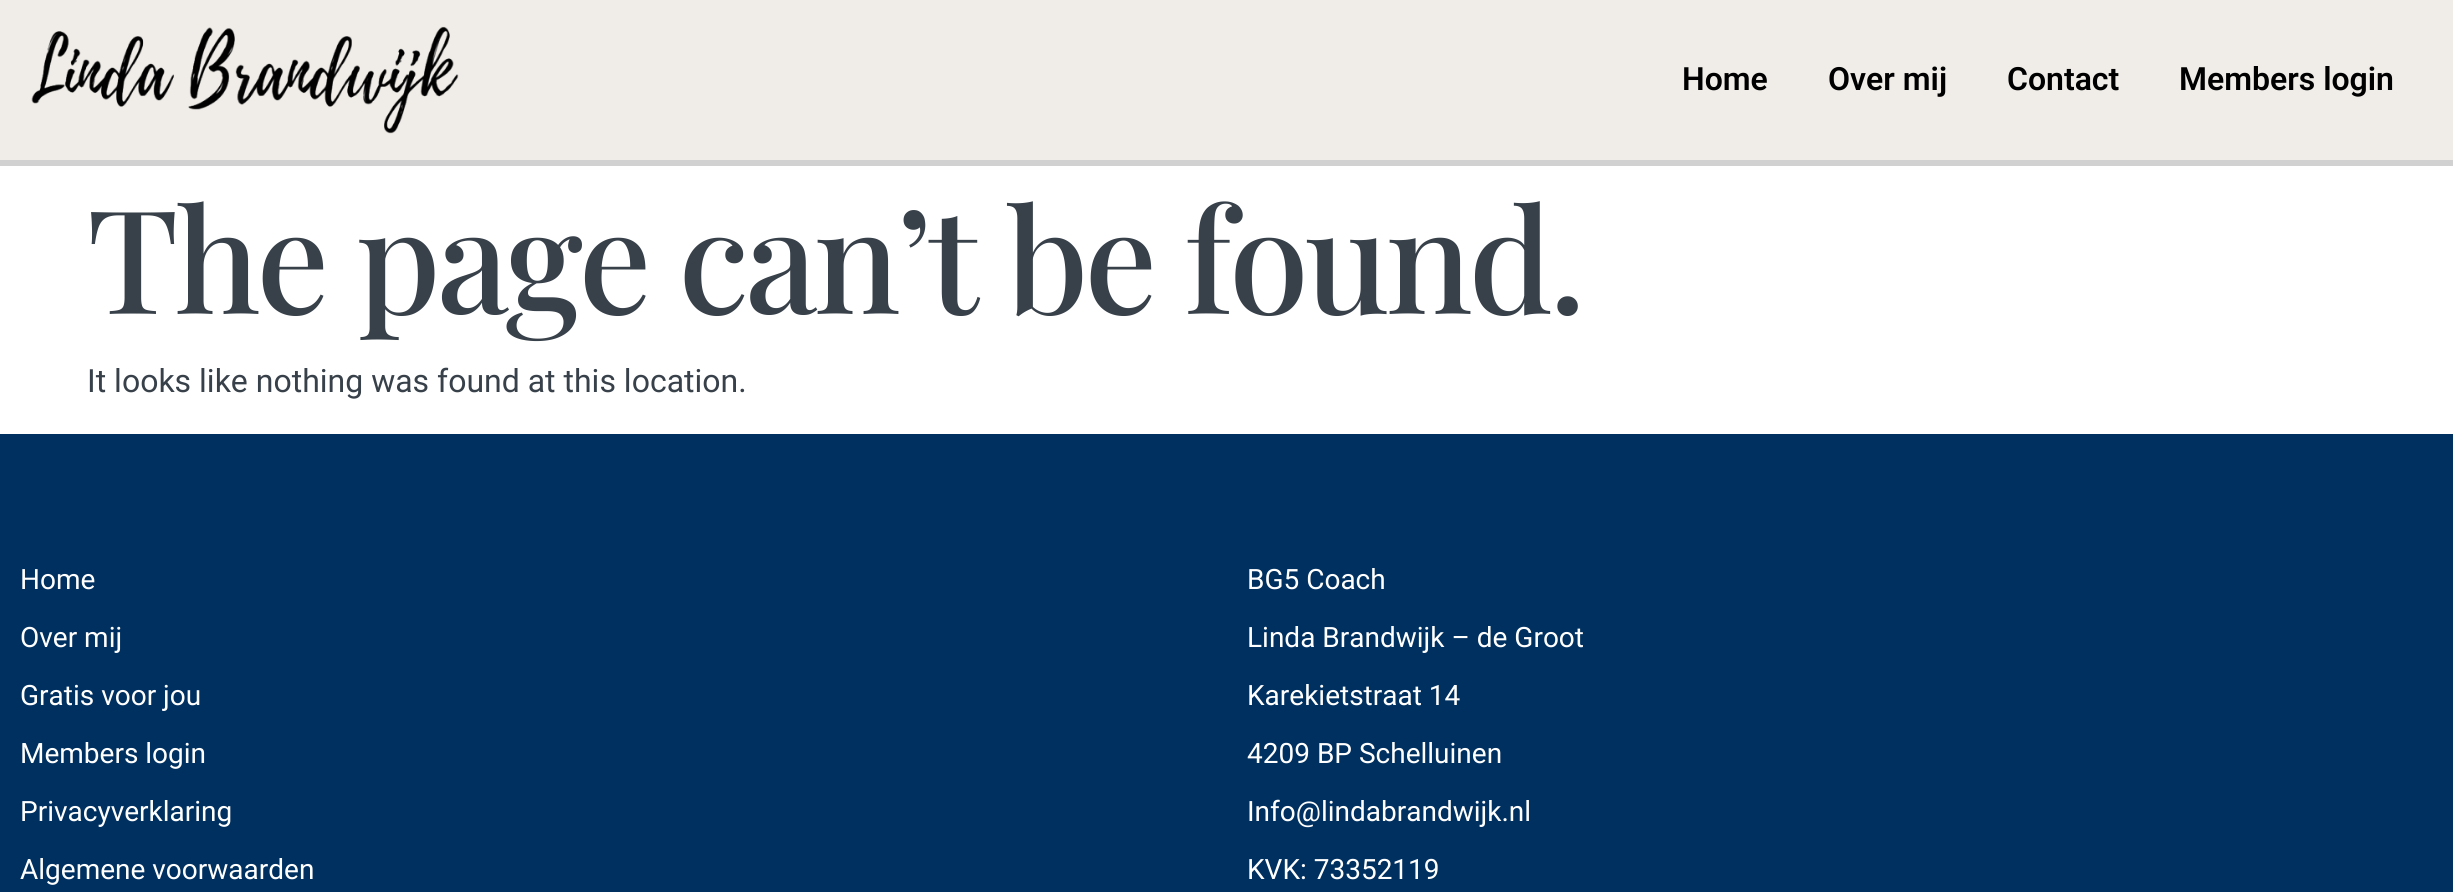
#include <cairo/cairo.h>
#include <math.h>
#include <stddef.h>

typedef struct { double x, y; const char *s; } line_t;
static cairo_t *cr;

static void rgb(unsigned color)
{
	cairo_set_source_rgb(cr, (color >> 16) / 255.0, (color >> 8 & 255) / 255.0, (color & 255) / 255.0);
}

static void tracked(double x, double y, const char *s, double letter, double word)
{
	cairo_move_to(cr, x, y);
	while (*s) {
		char ch[5] = {0};
		int n = 0;
		do ch[n++] = *s++; while ((*s & 0xC0) == 0x80);
		cairo_show_text(cr, ch);
		cairo_rel_move_to(cr, letter + word * (*ch == ' '), 0);
	}
}

static void image(const char *path, double x, double y, double w, double h)
{
	cairo_surface_t *image = cairo_image_surface_create_from_png(path);
	cairo_save(cr);
	cairo_set_source_surface(cr, image, x, y);
	cairo_rectangle(cr, x, y, w, h);
	cairo_fill(cr);
	cairo_restore(cr);
	cairo_surface_destroy(image);
}

int main(void) {
	cairo_surface_t *surface = cairo_image_surface_create(CAIRO_FORMAT_RGB24, 2453, 892);
	cr = cairo_create(surface);
	cairo_font_options_t *options = cairo_font_options_create();
	cairo_font_options_set_hint_metrics(options, CAIRO_HINT_METRICS_OFF);
	cairo_font_options_set_hint_style(options, CAIRO_HINT_STYLE_NONE);
	cairo_set_font_options(cr, options);
	cairo_set_miter_limit(cr, 4);
	rgb(0xffffff);
	cairo_paint(cr);
	rgb(0xf0ede8);
	cairo_rectangle(cr, 0, 0, 2453, 160);
	cairo_fill(cr);
	rgb(0xd1d1d1);
	cairo_rectangle(cr, 0, 160, 2453, 6);
	cairo_fill(cr);
	image("img/1.png", 31, 26, 428, 108);
	rgb(0x003060);
	cairo_rectangle(cr, 0, 434, 2453, 458);
	cairo_fill(cr);
	cairo_select_font_face(cr, "Roboto SemiBold", CAIRO_FONT_SLANT_NORMAL, CAIRO_FONT_WEIGHT_NORMAL);
	cairo_set_font_size(cr, 32);
	rgb(0x000000);
	{
		static const line_t items[] = {
			{1682, 90, "Home"},
			{1828, 90, "Over mij"},
			{2007, 90, "Contact"},
			{2179, 90, "Members login"},
		};
		for (size_t i = 0; i < sizeof items / sizeof *items; i++) {
			cairo_move_to(cr, items[i].x, items[i].y);
			cairo_show_text(cr, items[i].s);
		}
	}
	cairo_select_font_face(cr, "Playfair Display Medium", CAIRO_FONT_SLANT_NORMAL, CAIRO_FONT_WEIGHT_NORMAL);
	cairo_set_font_size(cr, 144);
	rgb(0x38414a);
	tracked(87, 314, "The page can’t be found.", -4, 0);
	cairo_select_font_face(cr, "Roboto", CAIRO_FONT_SLANT_NORMAL, CAIRO_FONT_WEIGHT_NORMAL);
	cairo_set_font_size(cr, 32);
	cairo_move_to(cr, 87, 392);
	cairo_show_text(cr, "It looks like nothing was found at this location.");
	cairo_set_font_size(cr, 28);
	rgb(0xffffff);
	{
		static const line_t items[] = {
			{20, 589, "Home"},
			{20, 647, "Over mij"},
			{20, 705, "Gratis voor jou"},
			{20, 763, "Members login"},
			{20, 821, "Privacyverklaring"},
			{20, 879, "Algemene voorwaarden"},
			{1247, 589, "BG5 Coach"},
			{1247, 647, "Linda Brandwijk – de Groot"},
			{1247, 705, "Karekietstraat 14"},
			{1247, 763, "4209 BP Schelluinen"},
			{1247, 821, "Info@lindabrandwijk.nl"},
			{1247, 879, "KVK: 73352119"},
		};
		for (size_t i = 0; i < sizeof items / sizeof *items; i++) {
			cairo_move_to(cr, items[i].x, items[i].y);
			cairo_show_text(cr, items[i].s);
		}
	}
	cairo_surface_write_to_png(surface, "page.png");
	cairo_font_options_destroy(options);
	cairo_destroy(cr);
	cairo_surface_destroy(surface);
	return 0;
}
